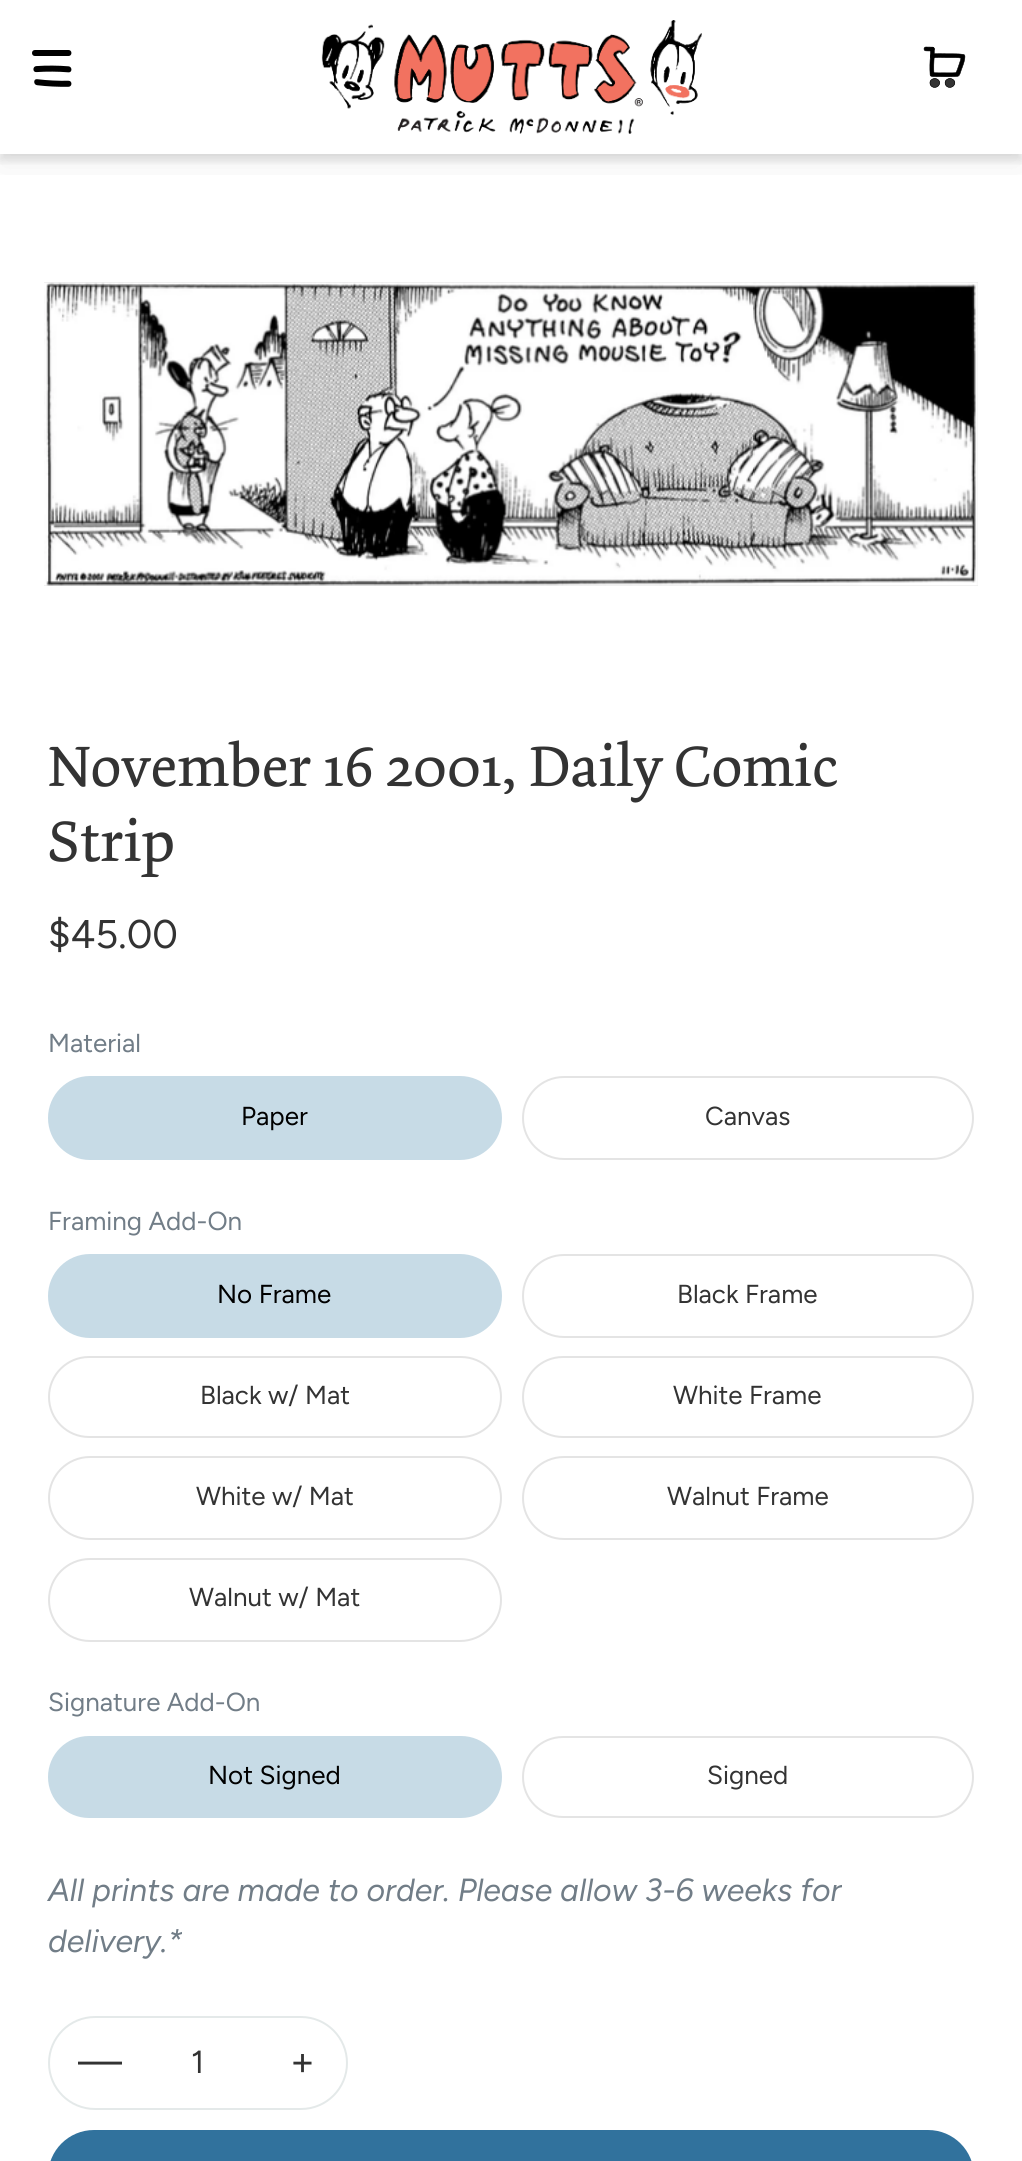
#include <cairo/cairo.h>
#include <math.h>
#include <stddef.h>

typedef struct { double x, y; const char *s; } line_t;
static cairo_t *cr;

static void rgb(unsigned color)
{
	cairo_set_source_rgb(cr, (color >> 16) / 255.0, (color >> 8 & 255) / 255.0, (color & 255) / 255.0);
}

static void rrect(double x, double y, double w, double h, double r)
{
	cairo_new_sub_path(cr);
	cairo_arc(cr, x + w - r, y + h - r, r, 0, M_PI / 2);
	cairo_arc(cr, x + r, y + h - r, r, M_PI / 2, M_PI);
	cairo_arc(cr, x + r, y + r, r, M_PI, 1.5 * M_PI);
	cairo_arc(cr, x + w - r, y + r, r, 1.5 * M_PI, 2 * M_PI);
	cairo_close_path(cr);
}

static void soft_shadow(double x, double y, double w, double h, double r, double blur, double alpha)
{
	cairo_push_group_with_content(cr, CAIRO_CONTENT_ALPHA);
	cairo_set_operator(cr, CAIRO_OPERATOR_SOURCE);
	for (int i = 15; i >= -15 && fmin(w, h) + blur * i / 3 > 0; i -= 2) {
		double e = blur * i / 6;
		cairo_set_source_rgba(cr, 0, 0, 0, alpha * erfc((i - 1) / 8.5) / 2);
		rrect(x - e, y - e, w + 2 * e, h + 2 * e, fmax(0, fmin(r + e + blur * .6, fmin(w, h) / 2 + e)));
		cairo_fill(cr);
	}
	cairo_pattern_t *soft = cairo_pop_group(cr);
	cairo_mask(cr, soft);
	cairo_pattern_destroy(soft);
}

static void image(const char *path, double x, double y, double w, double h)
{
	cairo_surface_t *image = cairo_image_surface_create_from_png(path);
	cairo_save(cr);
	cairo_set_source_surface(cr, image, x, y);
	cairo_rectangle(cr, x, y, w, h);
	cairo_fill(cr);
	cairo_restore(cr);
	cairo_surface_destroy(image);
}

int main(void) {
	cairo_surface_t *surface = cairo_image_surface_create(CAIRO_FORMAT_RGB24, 1022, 2161);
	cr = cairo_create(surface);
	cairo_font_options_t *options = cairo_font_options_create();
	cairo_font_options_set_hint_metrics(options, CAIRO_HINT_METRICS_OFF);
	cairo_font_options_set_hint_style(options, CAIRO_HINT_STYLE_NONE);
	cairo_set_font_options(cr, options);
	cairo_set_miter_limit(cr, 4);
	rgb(0xffffff);
	cairo_paint(cr);
	cairo_save(cr);
	cairo_rectangle(cr, 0, 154, 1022, 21);
	cairo_clip(cr);
	rgb(0x000000);
	soft_shadow(0, 12, 1022, 154, 0, 20, 0.06);
	cairo_restore(cr);
	cairo_save(cr);
	cairo_rectangle(cr, 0, 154, 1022, 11);
	cairo_clip(cr);
	rgb(0x000000);
	soft_shadow(0, 6, 1022, 154, 0, 5, 0.12);
	cairo_restore(cr);
	image("img/1.png", 32, 50, 40, 37);
	image("img/2.png", 321, 20, 381, 114);
	image("img/3.png", 923, 46, 43, 42);
	rgb(0xd7d7d7);
	cairo_rectangle(cr, 44, 282, 934, 304);
	cairo_fill(cr);
	image("img/4.png", 44, 282, 934, 304);
	rgb(0xc7dbe6);
	rrect(49, 1077, 452, 82, 41);
	cairo_fill_preserve(cr);
	cairo_stroke(cr);
	rrect(523, 1077, 450, 82, 41);
	rgb(0xe4e4e4);
	cairo_stroke(cr);
	rgb(0xc7dbe6);
	rrect(49, 1255, 452, 82, 41);
	cairo_fill_preserve(cr);
	cairo_stroke(cr);
	rrect(523, 1255, 450, 82, 41);
	rgb(0xe4e4e4);
	cairo_stroke(cr);
	rrect(49, 1357, 452, 80, 40);
	cairo_stroke(cr);
	rrect(523, 1357, 450, 80, 40);
	cairo_stroke(cr);
	rrect(49, 1457, 452, 82, 41);
	cairo_stroke(cr);
	rrect(523, 1457, 450, 82, 41);
	cairo_stroke(cr);
	rrect(49, 1559, 452, 82, 41);
	cairo_stroke(cr);
	rgb(0xc7dbe6);
	rrect(49, 1737, 452, 80, 40);
	cairo_fill_preserve(cr);
	cairo_stroke(cr);
	rrect(523, 1737, 450, 80, 40);
	rgb(0xe4e4e4);
	cairo_stroke(cr);
	rrect(49, 2017, 298, 92, 46);
	rgb(0xe4e9e9);
	cairo_stroke(cr);
	rgb(0x31729d);
	rrect(48, 2130, 926, 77, 46);
	cairo_fill(cr);
	cairo_select_font_face(cr, "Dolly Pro", CAIRO_FONT_SLANT_NORMAL, CAIRO_FONT_WEIGHT_NORMAL);
	cairo_set_font_size(cr, 60);
	rgb(0x333333);
	cairo_move_to(cr, 48, 786);
	cairo_show_text(cr, "November 16 2001, Daily Comic");
	cairo_move_to(cr, 48, 861);
	cairo_show_text(cr, "Strip");
	cairo_select_font_face(cr, "Figtree", CAIRO_FONT_SLANT_NORMAL, CAIRO_FONT_WEIGHT_NORMAL);
	cairo_set_font_size(cr, 40);
	cairo_move_to(cr, 48, 948);
	cairo_show_text(cr, "$45.00");
	cairo_set_font_size(cr, 26);
	rgb(0x717d87);
	cairo_move_to(cr, 48, 1052);
	cairo_show_text(cr, "Material");
	rgb(0x000000);
	cairo_move_to(cr, 241, 1125);
	cairo_show_text(cr, "Paper");
	rgb(0x333333);
	cairo_move_to(cr, 705, 1125);
	cairo_show_text(cr, "Canvas");
	rgb(0x717d87);
	cairo_move_to(cr, 48, 1230);
	cairo_show_text(cr, "Framing Add-On");
	rgb(0x000000);
	cairo_move_to(cr, 217, 1303);
	cairo_show_text(cr, "No Frame");
	rgb(0x333333);
	{
		static const line_t items[] = {
			{677, 1303, "Black Frame"},
			{200, 1404, "Black w/ Mat"},
			{673, 1404, "White Frame"},
			{196, 1505, "White w/ Mat"},
			{667, 1505, "Walnut Frame"},
			{189, 1606, "Walnut w/ Mat"},
		};
		for (size_t i = 0; i < sizeof items / sizeof *items; i++) {
			cairo_move_to(cr, items[i].x, items[i].y);
			cairo_show_text(cr, items[i].s);
		}
	}
	rgb(0x717d87);
	cairo_move_to(cr, 48, 1711);
	cairo_show_text(cr, "Signature Add-On");
	rgb(0x000000);
	cairo_move_to(cr, 208, 1784);
	cairo_show_text(cr, "Not Signed");
	rgb(0x333333);
	cairo_move_to(cr, 707, 1784);
	cairo_show_text(cr, "Signed");
	cairo_select_font_face(cr, "Figtree", CAIRO_FONT_SLANT_ITALIC, CAIRO_FONT_WEIGHT_NORMAL);
	cairo_set_font_size(cr, 32);
	rgb(0x717d87);
	cairo_move_to(cr, 48, 1901);
	cairo_show_text(cr, "All prints are made to order. Please allow 3-6 weeks for");
	cairo_move_to(cr, 48, 1952);
	cairo_show_text(cr, "delivery.*");
	cairo_select_font_face(cr, "Figtree", CAIRO_FONT_SLANT_NORMAL, CAIRO_FONT_WEIGHT_NORMAL);
	cairo_set_font_size(cr, 40);
	rgb(0x333333);
	cairo_move_to(cr, 78, 2075);
	cairo_show_text(cr, "—");
	cairo_set_font_size(cr, 32);
	cairo_move_to(cr, 191, 2073);
	cairo_show_text(cr, "1");
	cairo_set_font_size(cr, 40);
	cairo_move_to(cr, 290, 2075);
	cairo_show_text(cr, "+");
	cairo_surface_write_to_png(surface, "page.png");
	cairo_font_options_destroy(options);
	cairo_destroy(cr);
	cairo_surface_destroy(surface);
	return 0;
}
